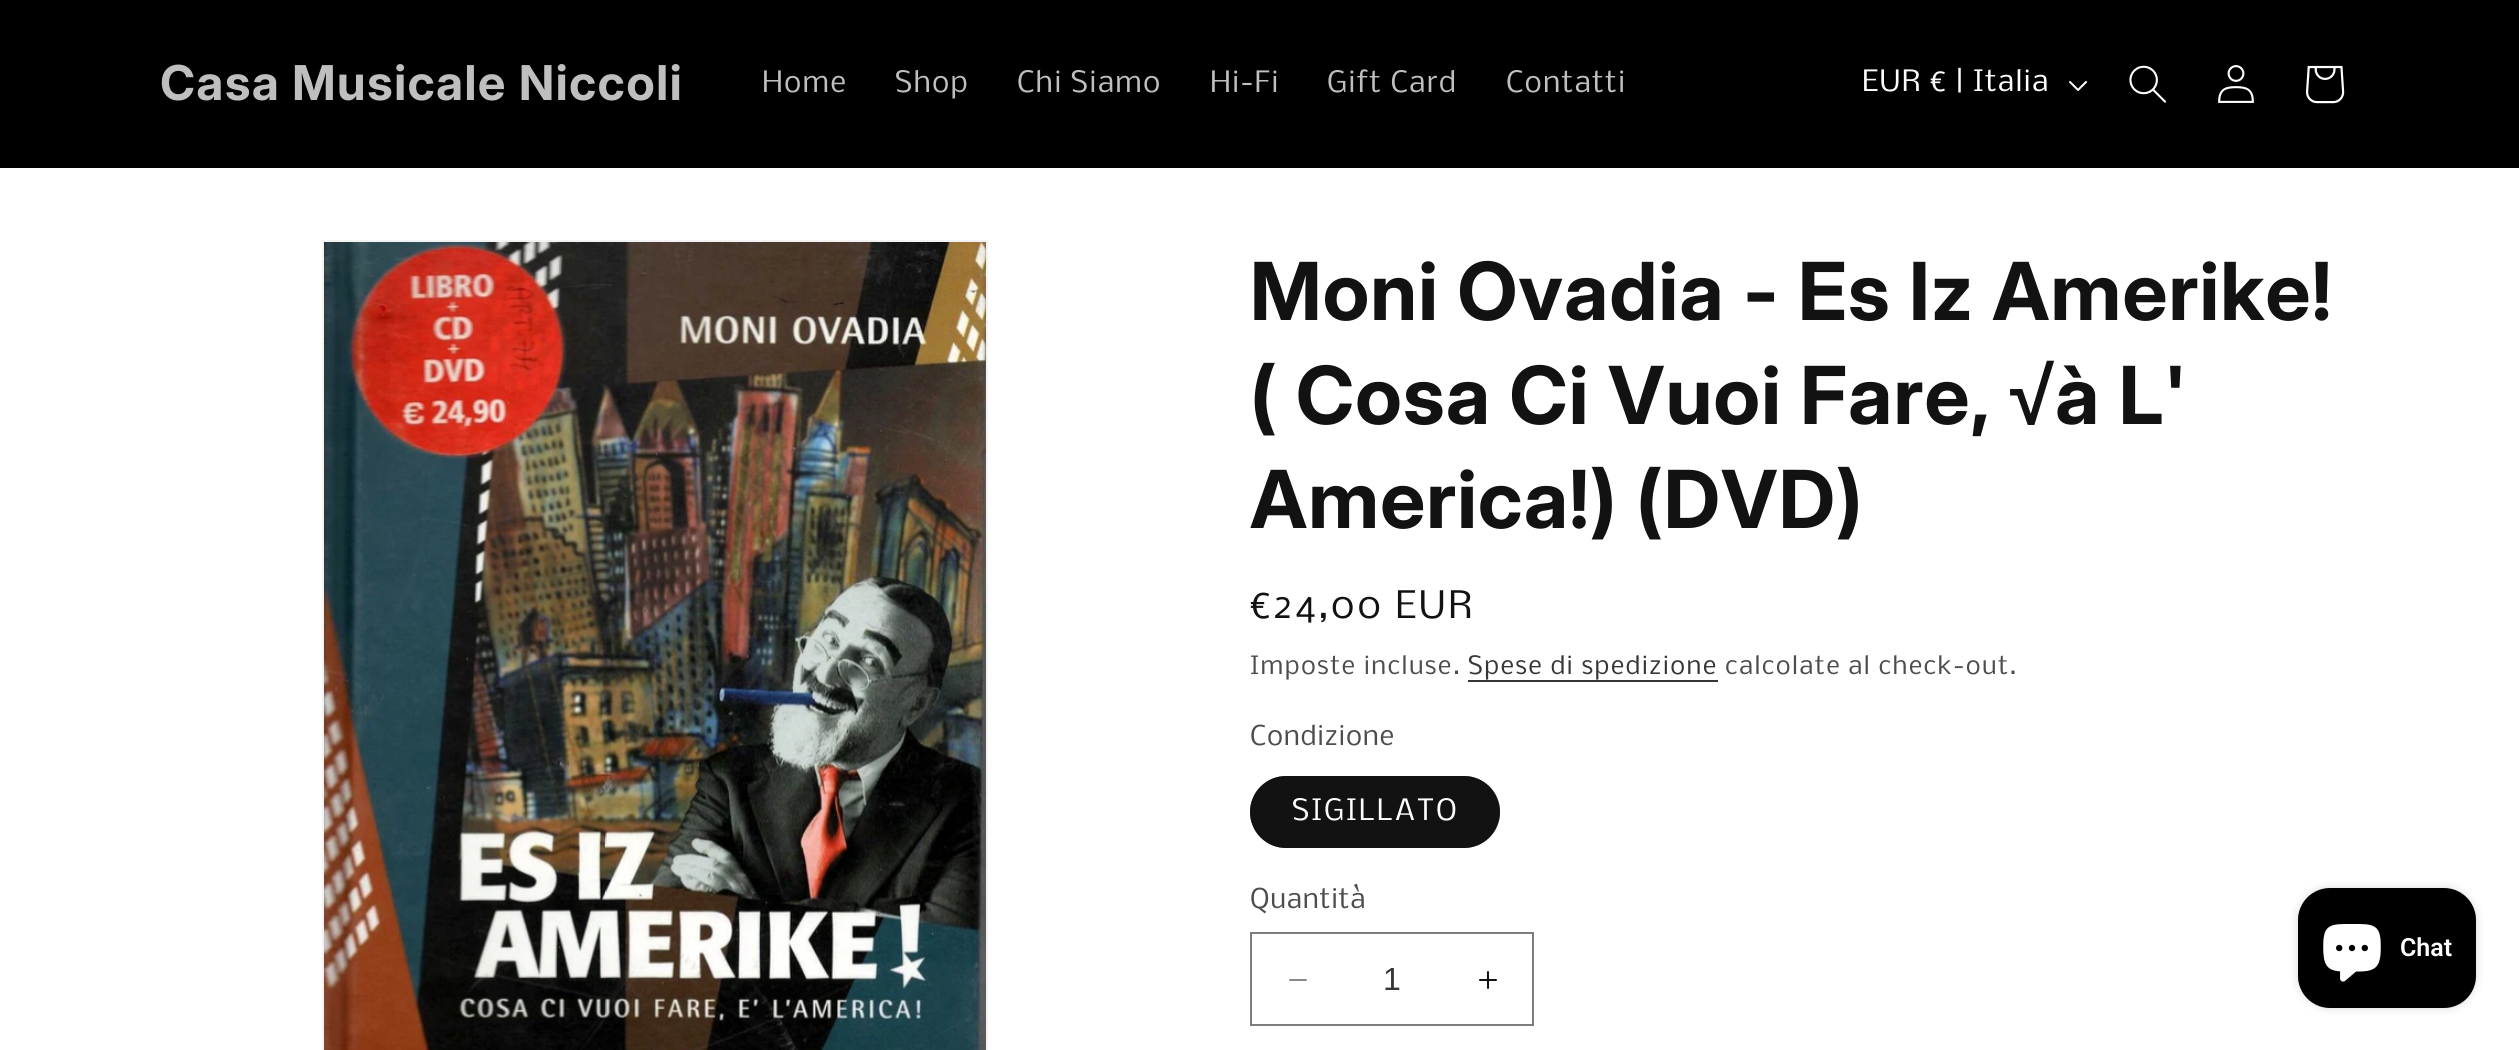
#include <cairo/cairo.h>
#include <math.h>
#include <stddef.h>

typedef struct { double x, y; const char *s; } line_t;
static cairo_t *cr;

static void rgb(unsigned color)
{
	cairo_set_source_rgb(cr, (color >> 16) / 255.0, (color >> 8 & 255) / 255.0, (color & 255) / 255.0);
}

static void tracked(double x, double y, const char *s, double letter, double word)
{
	cairo_move_to(cr, x, y);
	while (*s) {
		char ch[5] = {0};
		int n = 0;
		do ch[n++] = *s++; while ((*s & 0xC0) == 0x80);
		cairo_show_text(cr, ch);
		cairo_rel_move_to(cr, letter + word * (*ch == ' '), 0);
	}
}

static void rrect(double x, double y, double w, double h, double r)
{
	cairo_new_sub_path(cr);
	cairo_arc(cr, x + w - r, y + h - r, r, 0, M_PI / 2);
	cairo_arc(cr, x + r, y + h - r, r, M_PI / 2, M_PI);
	cairo_arc(cr, x + r, y + r, r, M_PI, 1.5 * M_PI);
	cairo_arc(cr, x + w - r, y + r, r, 1.5 * M_PI, 2 * M_PI);
	cairo_close_path(cr);
}

static void soft_shadow(double x, double y, double w, double h, double r, double blur, double alpha)
{
	cairo_push_group_with_content(cr, CAIRO_CONTENT_ALPHA);
	cairo_set_operator(cr, CAIRO_OPERATOR_SOURCE);
	for (int i = 15; i >= -15 && fmin(w, h) + blur * i / 3 > 0; i -= 2) {
		double e = blur * i / 6;
		cairo_set_source_rgba(cr, 0, 0, 0, alpha * erfc((i - 1) / 8.5) / 2);
		rrect(x - e, y - e, w + 2 * e, h + 2 * e, fmax(0, fmin(r + e + blur * .6, fmin(w, h) / 2 + e)));
		cairo_fill(cr);
	}
	cairo_pattern_t *soft = cairo_pop_group(cr);
	cairo_mask(cr, soft);
	cairo_pattern_destroy(soft);
}

static void image(const char *path, double x, double y, double w, double h)
{
	cairo_surface_t *image = cairo_image_surface_create_from_png(path);
	cairo_save(cr);
	cairo_set_source_surface(cr, image, x, y);
	cairo_rectangle(cr, x, y, w, h);
	cairo_fill(cr);
	cairo_restore(cr);
	cairo_surface_destroy(image);
}

int main(void) {
	cairo_surface_t *surface = cairo_image_surface_create(CAIRO_FORMAT_RGB24, 2519, 1050);
	cr = cairo_create(surface);
	cairo_font_options_t *options = cairo_font_options_create();
	cairo_font_options_set_hint_metrics(options, CAIRO_HINT_METRICS_OFF);
	cairo_font_options_set_hint_style(options, CAIRO_HINT_STYLE_NONE);
	cairo_set_font_options(cr, options);
	cairo_set_miter_limit(cr, 4);
	rgb(0xffffff);
	cairo_paint(cr);
	rgb(0x000000);
	cairo_rectangle(cr, 0, 0, 2519, 168);
	cairo_fill(cr);
	image("img/1.png", 2069, 81, 18, 10);
	image("img/2.png", 2129, 65, 37, 38);
	image("img/3.png", 2218, 65, 36, 38);
	image("img/4.png", 2306, 65, 39, 39);
	cairo_rectangle(cr, 323, 241, 664, 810);
	rgb(0xf3f3f3);
	cairo_stroke(cr);
	image("img/5.png", 324, 242, 662, 808);
	rgb(0x363636);
	cairo_rectangle(cr, 1468, 680, 250, 2);
	cairo_fill(cr);
	rgb(0x121212);
	rrect(1250, 776, 250, 72, 36);
	cairo_fill(cr);
	rrect(1251, 777, 248, 70, 35);
	cairo_set_source_rgba(cr, 0.071, 0.071, 0.071, 0.55);
	cairo_stroke(cr);
	image("img/6.png", 1289, 979, 18, 2);
	image("img/7.png", 1479, 971, 18, 18);
	cairo_rectangle(cr, 1251, 933, 282, 92);
	rgb(0x7d7d7d);
	cairo_stroke(cr);
	rgb(0x000000);
	soft_shadow(2298, 888, 178, 120, 32, 5, 0.15);
	rgb(0x000000);
	rrect(2298, 888, 178, 120, 32);
	cairo_fill(cr);
	image("img/8.png", 2323, 924, 58, 58);
	cairo_select_font_face(cr, "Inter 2", CAIRO_FONT_SLANT_NORMAL, CAIRO_FONT_WEIGHT_BOLD);
	cairo_set_font_size(cr, 48);
	rgb(0xbfbfbf);
	tracked(160, 100, "Casa Musicale Niccoli", 1.2, 0);
	cairo_select_font_face(cr, "Nobile", CAIRO_FONT_SLANT_NORMAL, CAIRO_FONT_WEIGHT_NORMAL);
	cairo_set_font_size(cr, 28);
	{
		static const line_t items[] = {
			{762, 92, "Home"},
			{895, 92, "Shop"},
			{1017, 92, "Chi Siamo"},
			{1210, 92, "Hi-Fi"},
			{1327, 92, "Gift Card"},
			{1506, 92, "Contatti"},
		};
		for (size_t i = 0; i < sizeof items / sizeof *items; i++) {
			tracked(items[i].x, items[i].y, items[i].s, 1.2, 0);
		}
	}
	rgb(0xffffff);
	tracked(1862, 91, "EUR € | Italia", 1.2, 0);
	cairo_select_font_face(cr, "Inter", CAIRO_FONT_SLANT_NORMAL, CAIRO_FONT_WEIGHT_BOLD);
	cairo_set_font_size(cr, 80);
	rgb(0x121212);
	tracked(1250, 320, "Moni Ovadia - Es Iz Amerike!", 1.2, 0);
	tracked(1250, 424, "( Cosa Ci Vuoi Fare,", 1.2, 0);
	cairo_select_font_face(cr, "Liberation Sans", CAIRO_FONT_SLANT_NORMAL, CAIRO_FONT_WEIGHT_BOLD);
	tracked(2010, 424, "√", 1.2, 0);
	cairo_select_font_face(cr, "Inter", CAIRO_FONT_SLANT_NORMAL, CAIRO_FONT_WEIGHT_BOLD);
	tracked(2055, 424, "à L'", 1.2, 0);
	tracked(1250, 528, "America!) (DVD)", 1.2, 0);
	cairo_select_font_face(cr, "Nobile", CAIRO_FONT_SLANT_NORMAL, CAIRO_FONT_WEIGHT_NORMAL);
	cairo_set_font_size(cr, 36);
	tracked(1250, 618, "€24,00 EUR", 2.6, 0);
	cairo_set_font_size(cr, 24);
	rgb(0x4d4d4d);
	tracked(1250, 674, "Imposte incluse.", 1.4, 0);
	rgb(0x363636);
	tracked(1468, 674, "Spese di spedizione", 1.4, 0);
	rgb(0x4d4d4d);
	tracked(1725, 674, "calcolate al check-out.", 1.4, 0);
	cairo_set_font_size(cr, 26);
	tracked(1250, 745, "Condizione", 0.75, 0);
	cairo_set_font_size(cr, 28);
	rgb(0xffffff);
	tracked(1292, 820, "SIGILLATO", 2, 0);
	cairo_set_font_size(cr, 26);
	rgb(0x4d4d4d);
	tracked(1250, 908, "Quantità", 0.75, 0);
	cairo_select_font_face(cr, "Liberation Sans", CAIRO_FONT_SLANT_NORMAL, CAIRO_FONT_WEIGHT_NORMAL);
	cairo_set_font_size(cr, 32);
	rgb(0x363636);
	cairo_move_to(cr, 1383, 990);
	cairo_show_text(cr, "1");
	cairo_select_font_face(cr, "Roboto SemiBold", CAIRO_FONT_SLANT_NORMAL, CAIRO_FONT_WEIGHT_NORMAL);
	cairo_set_font_size(cr, 25);
	rgb(0xffffff);
	cairo_move_to(cr, 2400, 956);
	cairo_show_text(cr, "Chat");
	cairo_surface_write_to_png(surface, "page.png");
	cairo_font_options_destroy(options);
	cairo_destroy(cr);
	cairo_surface_destroy(surface);
	return 0;
}
